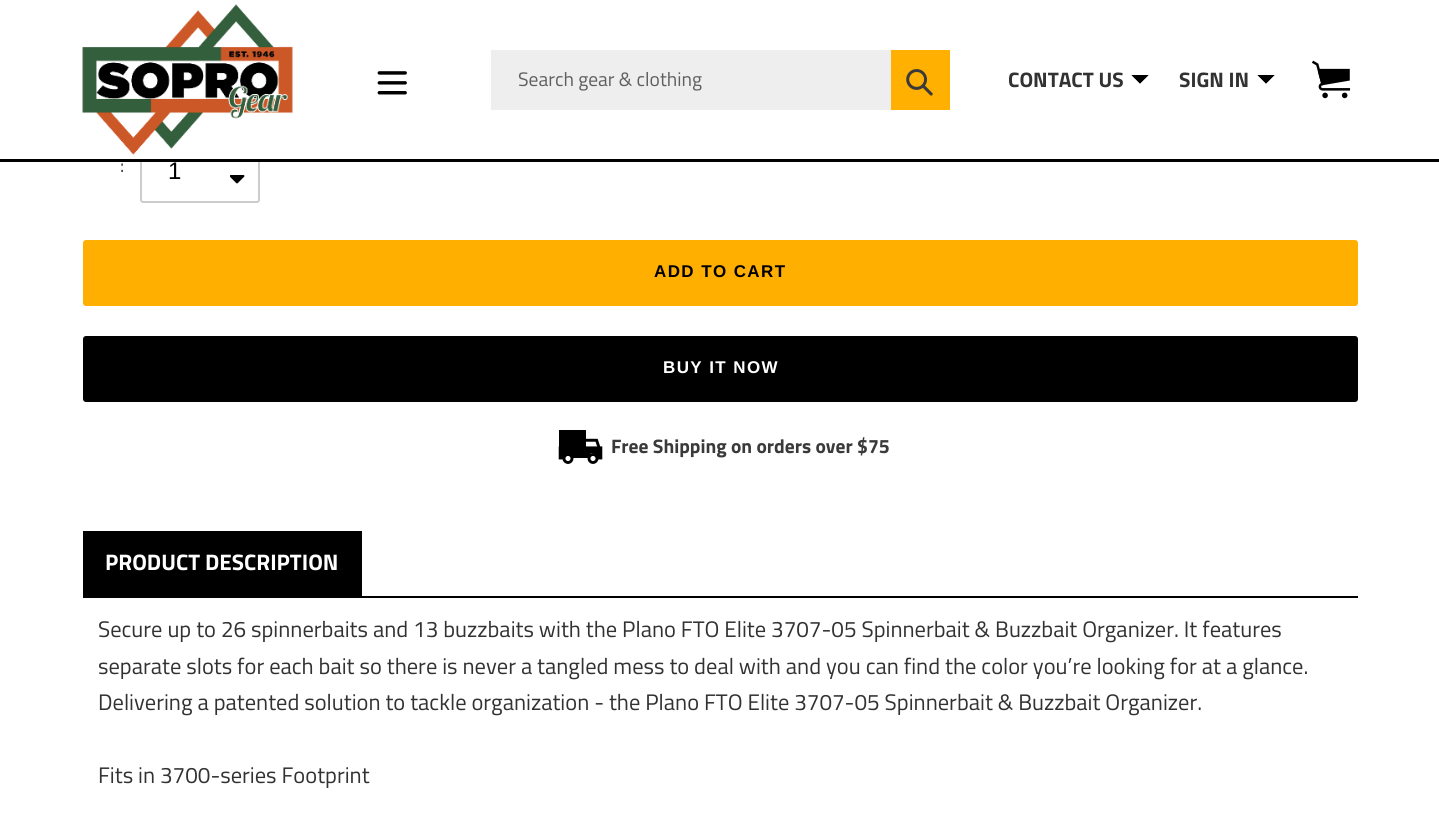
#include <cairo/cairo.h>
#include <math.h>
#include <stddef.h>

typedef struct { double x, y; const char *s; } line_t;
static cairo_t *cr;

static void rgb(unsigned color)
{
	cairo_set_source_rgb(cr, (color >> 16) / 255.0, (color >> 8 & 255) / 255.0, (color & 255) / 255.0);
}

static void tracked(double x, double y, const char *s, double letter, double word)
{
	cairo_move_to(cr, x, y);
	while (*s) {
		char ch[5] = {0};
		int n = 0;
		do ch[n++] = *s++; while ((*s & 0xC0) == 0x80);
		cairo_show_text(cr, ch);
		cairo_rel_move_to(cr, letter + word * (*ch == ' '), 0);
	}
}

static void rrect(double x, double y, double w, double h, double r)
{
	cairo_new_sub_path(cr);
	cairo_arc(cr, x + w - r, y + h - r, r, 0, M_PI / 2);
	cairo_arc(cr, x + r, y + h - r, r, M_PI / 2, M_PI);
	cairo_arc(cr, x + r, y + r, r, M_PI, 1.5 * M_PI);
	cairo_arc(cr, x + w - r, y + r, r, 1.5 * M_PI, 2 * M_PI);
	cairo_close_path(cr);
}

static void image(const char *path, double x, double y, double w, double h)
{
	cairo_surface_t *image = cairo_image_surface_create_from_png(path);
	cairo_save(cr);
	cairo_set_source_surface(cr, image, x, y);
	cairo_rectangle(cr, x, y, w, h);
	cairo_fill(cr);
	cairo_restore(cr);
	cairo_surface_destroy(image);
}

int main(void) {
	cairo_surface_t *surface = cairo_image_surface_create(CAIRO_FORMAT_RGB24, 1439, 830);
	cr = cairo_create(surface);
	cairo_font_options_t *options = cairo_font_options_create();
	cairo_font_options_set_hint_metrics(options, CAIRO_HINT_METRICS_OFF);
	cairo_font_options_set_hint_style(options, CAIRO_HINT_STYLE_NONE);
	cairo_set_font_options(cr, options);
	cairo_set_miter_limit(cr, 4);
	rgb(0xffffff);
	cairo_paint(cr);
	rrect(141, 142, 118, 60, 2);
	rgb(0xcccccc);
	cairo_stroke(cr);
	rgb(0xffffff);
	cairo_rectangle(cr, 140, 141, 120, 18);
	cairo_fill(cr);
	rgb(0x000000);
	cairo_rectangle(cr, 0, 159, 1439, 3);
	cairo_fill(cr);
	image("img/1.png", 82, 4, 211, 151);
	image("img/2.png", 377, 71, 30, 24);
	rgb(0xeeeeee);
	cairo_rectangle(cr, 491, 50, 400, 60);
	cairo_fill(cr);
	rgb(0xffb000);
	cairo_rectangle(cr, 891, 50, 59, 60);
	cairo_fill(cr);
	image("img/3.png", 906, 69, 27, 27);
	rgb(0x000000);
	cairo_new_path(cr);
	cairo_move_to(cr, 1131, 75);
	cairo_line_to(cr, 1149, 75);
	cairo_line_to(cr, 1140, 84);
	cairo_close_path(cr);
	cairo_fill(cr);
	rgb(0xffffff);
	cairo_new_path(cr);
	cairo_move_to(cr, 1149, 75);
	cairo_line_to(cr, 1149, 84);
	cairo_line_to(cr, 1140, 84);
	cairo_close_path(cr);
	cairo_move_to(cr, 1131, 84);
	cairo_line_to(cr, 1131, 75);
	cairo_line_to(cr, 1140, 84);
	cairo_close_path(cr);
	cairo_fill(cr);
	rgb(0x000000);
	cairo_new_path(cr);
	cairo_move_to(cr, 1257, 75);
	cairo_line_to(cr, 1275, 75);
	cairo_line_to(cr, 1266, 84);
	cairo_close_path(cr);
	cairo_fill(cr);
	rgb(0xffffff);
	cairo_new_path(cr);
	cairo_move_to(cr, 1275, 75);
	cairo_line_to(cr, 1275, 84);
	cairo_line_to(cr, 1266, 84);
	cairo_close_path(cr);
	cairo_move_to(cr, 1257, 84);
	cairo_line_to(cr, 1257, 75);
	cairo_line_to(cr, 1266, 84);
	cairo_close_path(cr);
	cairo_fill(cr);
	image("img/4.png", 1312, 60, 39, 39);
	image("img/5.png", 230, 175, 15, 9);
	rgb(0xffaf00);
	rrect(83, 240, 1275, 66, 3);
	cairo_fill(cr);
	rgb(0x000000);
	rrect(83, 336, 1275, 66, 3);
	cairo_fill(cr);
	image("img/6.png", 558, 430, 45, 34);
	cairo_rectangle(cr, 83, 596, 1275, 2);
	cairo_fill(cr);
	cairo_rectangle(cr, 83, 531, 279, 65);
	cairo_fill(cr);
	cairo_select_font_face(cr, "Cairo", CAIRO_FONT_SLANT_NORMAL, CAIRO_FONT_WEIGHT_NORMAL);
	cairo_set_font_size(cr, 19.5);
	rgb(0x5f5f5f);
	cairo_move_to(cr, 518, 86);
	cairo_show_text(cr, "Search gear & clothing");
	cairo_select_font_face(cr, "Cairo", CAIRO_FONT_SLANT_NORMAL, CAIRO_FONT_WEIGHT_BOLD);
	cairo_set_font_size(cr, 21);
	rgb(0x333232);
	cairo_move_to(cr, 1008, 87);
	cairo_show_text(cr, "CONTACT US");
	cairo_move_to(cr, 1179, 87);
	cairo_show_text(cr, "SIGN IN");
	cairo_select_font_face(cr, "Cairo", CAIRO_FONT_SLANT_NORMAL, CAIRO_FONT_WEIGHT_NORMAL);
	cairo_set_font_size(cr, 19.5);
	rgb(0x3a3a3a);
	cairo_move_to(cr, 120, 172);
	cairo_show_text(cr, ":");
	cairo_select_font_face(cr, "Liberation Sans", CAIRO_FONT_SLANT_NORMAL, CAIRO_FONT_WEIGHT_NORMAL);
	cairo_set_font_size(cr, 24);
	rgb(0x000000);
	cairo_move_to(cr, 168, 179);
	cairo_show_text(cr, "1");
	cairo_select_font_face(cr, "Liberation Sans", CAIRO_FONT_SLANT_NORMAL, CAIRO_FONT_WEIGHT_BOLD);
	cairo_set_font_size(cr, 17);
	tracked(654, 277, "ADD TO CART", 1.4, 0);
	rgb(0xffffff);
	tracked(663, 373, "BUY IT NOW", 1.4, 0);
	cairo_select_font_face(cr, "Cairo", CAIRO_FONT_SLANT_NORMAL, CAIRO_FONT_WEIGHT_BOLD);
	cairo_set_font_size(cr, 19.5);
	rgb(0x3a3a3a);
	cairo_move_to(cr, 611, 453);
	cairo_show_text(cr, "Free Shipping on orders over $75");
	cairo_set_font_size(cr, 22.5);
	rgb(0xffffff);
	cairo_move_to(cr, 105, 570);
	cairo_show_text(cr, "PRODUCT DESCRIPTION");
	cairo_select_font_face(cr, "Cairo", CAIRO_FONT_SLANT_NORMAL, CAIRO_FONT_WEIGHT_NORMAL);
	rgb(0x333232);
	{
		static const line_t items[] = {
			{98, 637, "Secure up to 26 spinnerbaits and 13 buzzbaits with the Plano FTO Elite 3707-05 Spinnerbait & Buzzbait Organizer. It features"},
			{98, 674, "separate slots for each bait so there is never a tangled mess to deal with and you can find the color you’re looking for at a glance."},
			{98, 710, "Delivering a patented solution to tackle organization - the Plano FTO Elite 3707-05 Spinnerbait & Buzzbait Organizer."},
			{98, 783, "Fits in 3700-series Footprint"},
		};
		for (size_t i = 0; i < sizeof items / sizeof *items; i++) {
			cairo_move_to(cr, items[i].x, items[i].y);
			cairo_show_text(cr, items[i].s);
		}
	}
	cairo_surface_write_to_png(surface, "page.png");
	cairo_font_options_destroy(options);
	cairo_destroy(cr);
	cairo_surface_destroy(surface);
	return 0;
}
